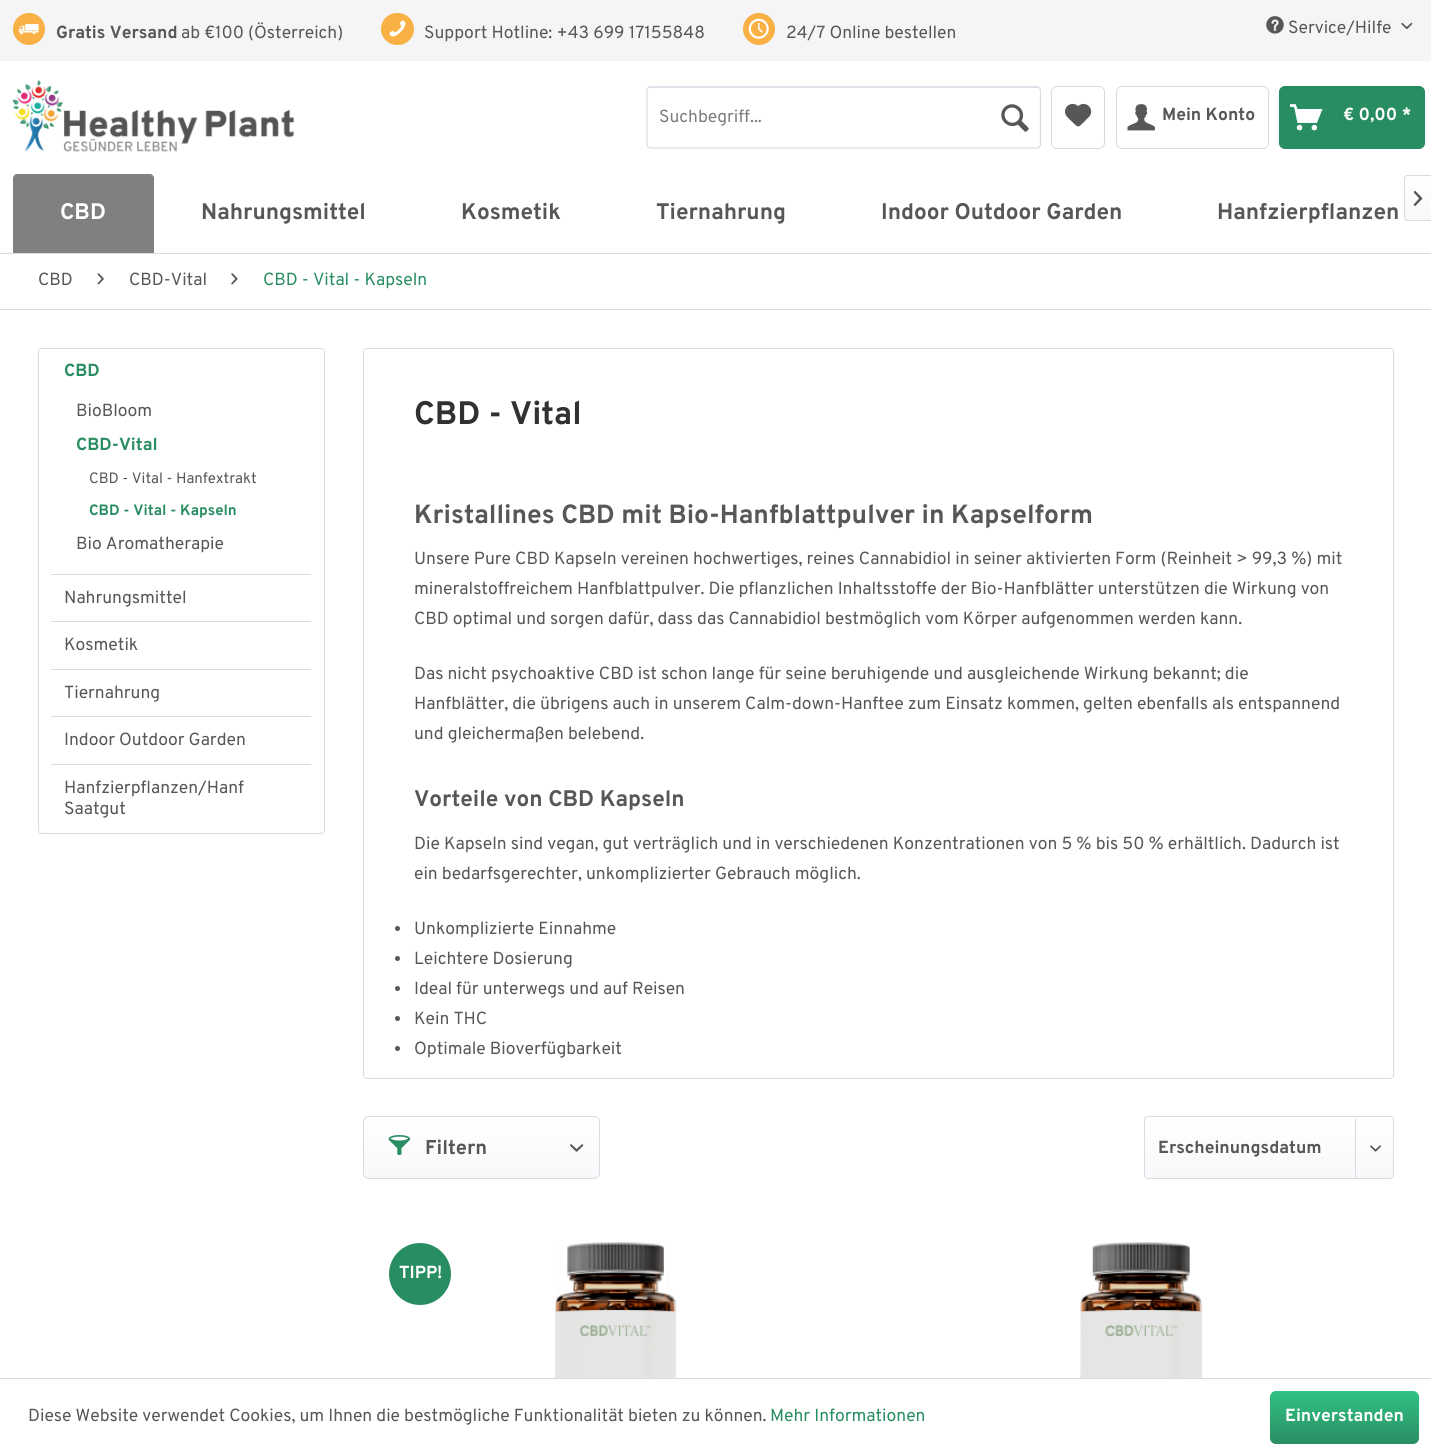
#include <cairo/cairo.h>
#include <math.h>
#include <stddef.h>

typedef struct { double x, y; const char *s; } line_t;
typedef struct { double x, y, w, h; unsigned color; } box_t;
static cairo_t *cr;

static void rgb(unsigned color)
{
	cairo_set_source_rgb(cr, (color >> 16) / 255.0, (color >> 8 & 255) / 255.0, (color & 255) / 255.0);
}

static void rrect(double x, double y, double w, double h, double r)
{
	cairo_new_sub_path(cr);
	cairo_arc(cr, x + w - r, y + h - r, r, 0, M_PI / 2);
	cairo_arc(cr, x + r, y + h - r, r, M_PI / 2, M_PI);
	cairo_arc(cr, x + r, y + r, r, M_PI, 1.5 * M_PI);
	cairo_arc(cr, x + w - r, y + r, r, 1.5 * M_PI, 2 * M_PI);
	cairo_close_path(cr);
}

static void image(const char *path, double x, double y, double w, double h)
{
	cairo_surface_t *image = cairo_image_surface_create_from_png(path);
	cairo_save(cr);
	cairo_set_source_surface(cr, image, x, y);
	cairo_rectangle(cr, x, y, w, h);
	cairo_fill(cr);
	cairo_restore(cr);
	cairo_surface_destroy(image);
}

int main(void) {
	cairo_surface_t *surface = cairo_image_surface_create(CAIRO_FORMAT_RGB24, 1431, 1456);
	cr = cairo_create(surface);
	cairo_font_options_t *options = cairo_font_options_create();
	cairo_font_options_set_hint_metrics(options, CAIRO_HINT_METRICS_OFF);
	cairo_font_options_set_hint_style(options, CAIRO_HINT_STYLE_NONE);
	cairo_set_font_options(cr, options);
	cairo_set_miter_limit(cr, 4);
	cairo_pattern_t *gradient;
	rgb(0xffffff);
	cairo_paint(cr);
	rgb(0xf5f5f8);
	cairo_rectangle(cr, 0, 0, 1431, 61);
	cairo_fill(cr);
	rgb(0xf9b145);
	cairo_arc(cr, 29, 29, 16, 0, 2 * M_PI);
	cairo_fill(cr);
	image("img/1.png", 18, 24, 21, 11);
	rrect(381, 13, 33, 32, 16);
	cairo_fill(cr);
	image("img/2.png", 389, 20, 17, 17);
	cairo_arc(cr, 759, 29, 16, 0, 2 * M_PI);
	cairo_fill(cr);
	image("img/3.png", 748, 18, 21, 21);
	image("img/4.png", 1266, 16, 18, 18);
	image("img/5.png", 1401, 22, 12, 8);
	image("img/6.png", 12, 80, 282, 72);
	cairo_new_path(cr);
	cairo_move_to(cr, 648, 88);
	cairo_line_to(cr, 650, 87);
	cairo_line_to(cr, 1037.5, 87);
	cairo_line_to(cr, 1039.5, 88);
	rgb(0xcbcbdb);
	cairo_set_line_width(cr, 1.2);
	cairo_stroke(cr);
	cairo_new_path(cr);
	cairo_move_to(cr, 1039.5, 88);
	cairo_line_to(cr, 1040.5, 90);
	cairo_line_to(cr, 1040.5, 145);
	cairo_line_to(cr, 1039.5, 147);
	cairo_line_to(cr, 1037.5, 148);
	cairo_line_to(cr, 650, 148);
	cairo_line_to(cr, 648, 147);
	cairo_line_to(cr, 647, 145);
	cairo_line_to(cr, 647, 90);
	cairo_line_to(cr, 648, 88);
	rgb(0xdadae5);
	cairo_stroke(cr);
	image("img/7.png", 1001, 104, 28, 28);
	rrect(1051.5, 86.5, 53, 62, 5.5);
	cairo_set_line_width(cr, 1);
	cairo_stroke(cr);
	image("img/8.png", 1065, 103, 27, 24);
	rrect(1116.5, 86.5, 152, 62, 5.5);
	cairo_stroke(cr);
	image("img/9.png", 1127, 104, 28, 27);
	rgb(0x298d62);
	rrect(1279.5, 86.5, 145, 62, 5.5);
	cairo_fill_preserve(cr);
	cairo_stroke(cr);
	image("img/10.png", 1290, 104, 33, 27);
	rgb(0xdadae5);
	cairo_rectangle(cr, 0, 253, 1431, 1);
	cairo_fill(cr);
	rgb(0x808080);
	cairo_new_path(cr);
	cairo_move_to(cr, 17, 174);
	cairo_line_to(cr, 150, 174);
	cairo_curve_to(cr, 152, 174, 154, 176, 154, 178);
	cairo_line_to(cr, 154, 253);
	cairo_line_to(cr, 13, 253);
	cairo_line_to(cr, 13, 178);
	cairo_curve_to(cr, 13, 176, 15, 174, 17, 174);
	cairo_close_path(cr);
	cairo_fill(cr);
	gradient = cairo_pattern_create_linear(1418, 176, 1418, 220);
	cairo_pattern_add_color_stop_rgba(gradient, 0, 1, 1, 1, 1);
	cairo_pattern_add_color_stop_rgba(gradient, 1, 0.973, 0.973, 0.98, 1);
	cairo_set_source(cr, gradient);
	cairo_pattern_destroy(gradient);
	cairo_new_path(cr);
	cairo_move_to(cr, 1407.5, 176);
	cairo_line_to(cr, 1431, 176);
	cairo_line_to(cr, 1431, 220);
	cairo_line_to(cr, 1407.5, 220);
	cairo_curve_to(cr, 1406, 220, 1405, 219, 1405, 217.5);
	cairo_line_to(cr, 1405, 178.5);
	cairo_curve_to(cr, 1405, 177, 1406, 176, 1407.5, 176);
	cairo_close_path(cr);
	cairo_fill(cr);
	rgb(0xdadae5);
	cairo_set_fill_rule(cr, CAIRO_FILL_RULE_EVEN_ODD);
	cairo_new_path(cr);
	cairo_move_to(cr, 1408, 175);
	cairo_line_to(cr, 1431, 175);
	cairo_line_to(cr, 1431, 221);
	cairo_line_to(cr, 1408, 221);
	cairo_curve_to(cr, 1405, 221, 1404, 220, 1404, 218);
	cairo_line_to(cr, 1404, 179);
	cairo_curve_to(cr, 1404, 177, 1405, 175, 1408, 175);
	cairo_close_path(cr);
	cairo_move_to(cr, 1408, 176);
	cairo_line_to(cr, 1431, 176);
	cairo_line_to(cr, 1431, 220);
	cairo_line_to(cr, 1408, 220);
	cairo_curve_to(cr, 1406, 220, 1405, 219, 1405, 218);
	cairo_line_to(cr, 1405, 179);
	cairo_curve_to(cr, 1405, 177, 1406, 176, 1408, 176);
	cairo_close_path(cr);
	cairo_fill(cr);
	image("img/11.png", 1413, 191, 10, 15);
	cairo_rectangle(cr, 0, 309, 1431, 1);
	cairo_fill(cr);
	image("img/12.png", 97, 273, 7, 12);
	image("img/13.png", 231, 273, 7, 12);
	rrect(38.5, 348.5, 286, 485, 3.5);
	cairo_stroke(cr);
	{
		static const box_t items[] = {
			{51, 574, 260, 1, 0xdadae5},
			{51, 621, 260, 1, 0xdadae5},
			{51, 669, 260, 1, 0xdadae5},
			{51, 716, 260, 1, 0xdadae5},
			{51, 764, 260, 1, 0xdadae5},
		};
		for (size_t i = 0; i < sizeof items / sizeof *items; i++) {
			rgb(items[i].color);
			cairo_rectangle(cr, items[i].x, items[i].y, items[i].w, items[i].h);
			cairo_fill(cr);
		}
	}
	rrect(363.5, 348.5, 1030, 730, 3.5);
	cairo_stroke(cr);
	rgb(0x585756);
	cairo_arc(cr, 397.5, 928.5, 2.5, 0, 2 * M_PI);
	cairo_fill(cr);
	cairo_arc(cr, 397.5, 958.5, 2.5, 0, 2 * M_PI);
	cairo_fill(cr);
	cairo_arc(cr, 397.5, 988.5, 2.5, 0, 2 * M_PI);
	cairo_fill(cr);
	cairo_arc(cr, 397.5, 1018.5, 2.5, 0, 2 * M_PI);
	cairo_fill(cr);
	cairo_arc(cr, 397.5, 1048.5, 2.5, 0, 2 * M_PI);
	cairo_fill(cr);
	gradient = cairo_pattern_create_linear(481, 1118, 481, 1178);
	cairo_pattern_add_color_stop_rgba(gradient, 0, 1, 1, 1, 1);
	cairo_pattern_add_color_stop_rgba(gradient, 1, 0.973, 0.973, 0.98, 1);
	cairo_set_source(cr, gradient);
	cairo_pattern_destroy(gradient);
	rrect(364, 1118, 235, 60, 5);
	cairo_fill(cr);
	rrect(363.5, 1116.5, 236, 62, 5.5);
	rgb(0xdadae5);
	cairo_stroke(cr);
	image("img/14.png", 388, 1135, 22, 20);
	image("img/15.png", 570, 1144, 14, 8);
	gradient = cairo_pattern_create_linear(1269, 1118, 1269, 1178);
	cairo_pattern_add_color_stop_rgba(gradient, 0, 1, 1, 1, 1);
	cairo_pattern_add_color_stop_rgba(gradient, 1, 0.973, 0.973, 0.98, 1);
	cairo_set_source(cr, gradient);
	cairo_pattern_destroy(gradient);
	rrect(1145, 1118, 248, 60, 2.5);
	cairo_fill(cr);
	rrect(1144.5, 1116.5, 249, 62, 3.5);
	rgb(0xdadae5);
	cairo_stroke(cr);
	cairo_rectangle(cr, 1355, 1118, 1, 61);
	cairo_fill(cr);
	image("img/16.png", 1370, 1145, 11, 7);
	rgb(0x298d62);
	cairo_arc(cr, 420, 1274, 31, 0, 2 * M_PI);
	cairo_fill(cr);
	image("img/17.png", 555, 1242, 122, 136);
	image("img/18.png", 1080, 1242, 123, 136);
	rgb(0xdadae5);
	cairo_rectangle(cr, 0, 1378, 1431, 1);
	cairo_fill(cr);
	gradient = cairo_pattern_create_linear(1344, 1391, 1344, 1444);
	cairo_pattern_add_color_stop_rgba(gradient, 0, 0.192, 0.761, 0.518, 1);
	cairo_pattern_add_color_stop_rgba(gradient, 1, 0.161, 0.553, 0.384, 1);
	cairo_set_source(cr, gradient);
	cairo_pattern_destroy(gradient);
	rrect(1270, 1391, 149, 53, 6);
	cairo_fill(cr);
	cairo_select_font_face(cr, "Overpass", CAIRO_FONT_SLANT_NORMAL, CAIRO_FONT_WEIGHT_BOLD);
	cairo_set_font_size(cr, 17.5);
	rgb(0x585756);
	cairo_move_to(cr, 56, 38);
	cairo_show_text(cr, "Gratis Versand");
	cairo_select_font_face(cr, "Overpass", CAIRO_FONT_SLANT_NORMAL, CAIRO_FONT_WEIGHT_NORMAL);
	{
		static const line_t items[] = {
			{181, 38, "ab €100 (Österreich)"},
			{424, 38, "Support Hotline: +43 699 17155848"},
			{786, 38, "24/7 Online bestellen"},
			{1288, 33, "Service/Hilfe"},
		};
		for (size_t i = 0; i < sizeof items / sizeof *items; i++) {
			cairo_move_to(cr, items[i].x, items[i].y);
			cairo_show_text(cr, items[i].s);
		}
	}
	rgb(0x7f7d7c);
	cairo_move_to(cr, 659, 122);
	cairo_show_text(cr, "Suchbegriff...");
	cairo_select_font_face(cr, "Overpass", CAIRO_FONT_SLANT_NORMAL, CAIRO_FONT_WEIGHT_BOLD);
	rgb(0x585756);
	cairo_move_to(cr, 1162, 120);
	cairo_show_text(cr, "Mein Konto");
	rgb(0xffffff);
	cairo_move_to(cr, 1343, 120);
	cairo_show_text(cr, "€ 0,00 *");
	cairo_set_font_size(cr, 22.5);
	cairo_move_to(cr, 60, 219);
	cairo_show_text(cr, "CBD");
	rgb(0x585756);
	{
		static const line_t items[] = {
			{201, 219, "Nahrungsmittel"},
			{461, 219, "Kosmetik"},
			{656, 219, "Tiernahrung"},
			{881, 219, "Indoor Outdoor Garden"},
			{1217, 219, "Hanfzierpflanzen"},
		};
		for (size_t i = 0; i < sizeof items / sizeof *items; i++) {
			cairo_move_to(cr, items[i].x, items[i].y);
			cairo_show_text(cr, items[i].s);
		}
	}
	cairo_select_font_face(cr, "Overpass", CAIRO_FONT_SLANT_NORMAL, CAIRO_FONT_WEIGHT_NORMAL);
	cairo_set_font_size(cr, 17.5);
	cairo_move_to(cr, 38, 285);
	cairo_show_text(cr, "CBD");
	cairo_move_to(cr, 129, 285);
	cairo_show_text(cr, "CBD-Vital");
	rgb(0x298d62);
	cairo_move_to(cr, 263, 285);
	cairo_show_text(cr, "CBD - Vital - Kapseln");
	cairo_select_font_face(cr, "Overpass", CAIRO_FONT_SLANT_NORMAL, CAIRO_FONT_WEIGHT_BOLD);
	cairo_move_to(cr, 64, 376);
	cairo_show_text(cr, "CBD");
	cairo_select_font_face(cr, "Overpass", CAIRO_FONT_SLANT_NORMAL, CAIRO_FONT_WEIGHT_NORMAL);
	rgb(0x585756);
	cairo_move_to(cr, 76, 416);
	cairo_show_text(cr, "BioBloom");
	cairo_select_font_face(cr, "Overpass", CAIRO_FONT_SLANT_NORMAL, CAIRO_FONT_WEIGHT_BOLD);
	rgb(0x298d62);
	cairo_move_to(cr, 76, 450);
	cairo_show_text(cr, "CBD-Vital");
	cairo_select_font_face(cr, "Overpass", CAIRO_FONT_SLANT_NORMAL, CAIRO_FONT_WEIGHT_NORMAL);
	cairo_set_font_size(cr, 15);
	rgb(0x585756);
	cairo_move_to(cr, 89, 483);
	cairo_show_text(cr, "CBD - Vital - Hanfextrakt");
	cairo_select_font_face(cr, "Overpass", CAIRO_FONT_SLANT_NORMAL, CAIRO_FONT_WEIGHT_BOLD);
	rgb(0x298d62);
	cairo_move_to(cr, 89, 515);
	cairo_show_text(cr, "CBD - Vital - Kapseln");
	cairo_select_font_face(cr, "Overpass", CAIRO_FONT_SLANT_NORMAL, CAIRO_FONT_WEIGHT_NORMAL);
	cairo_set_font_size(cr, 17.5);
	rgb(0x585756);
	{
		static const line_t items[] = {
			{76, 549, "Bio Aromatherapie"},
			{64, 603, "Nahrungsmittel"},
			{64, 650, "Kosmetik"},
			{64, 698, "Tiernahrung"},
			{64, 745, "Indoor Outdoor Garden"},
			{64, 793, "Hanfzierpflanzen/Hanf"},
			{64, 814, "Saatgut"},
		};
		for (size_t i = 0; i < sizeof items / sizeof *items; i++) {
			cairo_move_to(cr, items[i].x, items[i].y);
			cairo_show_text(cr, items[i].s);
		}
	}
	cairo_select_font_face(cr, "Overpass", CAIRO_FONT_SLANT_NORMAL, CAIRO_FONT_WEIGHT_BOLD);
	cairo_set_font_size(cr, 32.5);
	rgb(0x313130);
	cairo_move_to(cr, 414, 424);
	cairo_show_text(cr, "CBD - Vital");
	cairo_set_font_size(cr, 26.25);
	rgb(0x585756);
	cairo_move_to(cr, 414, 523);
	cairo_show_text(cr, "Kristallines CBD mit Bio-Hanfblattpulver in Kapselform");
	cairo_select_font_face(cr, "Overpass", CAIRO_FONT_SLANT_NORMAL, CAIRO_FONT_WEIGHT_NORMAL);
	cairo_set_font_size(cr, 17.5);
	{
		static const line_t items[] = {
			{414, 564, "Unsere Pure CBD Kapseln vereinen hochwertiges, reines Cannabidiol in seiner aktivierten Form (Reinheit > 99,3 %) mit"},
			{414, 594, "mineralstoffreichem Hanfblattpulver. Die pflanzlichen Inhaltsstoffe der Bio-Hanfblätter unterstützen die Wirkung von"},
			{414, 624, "CBD optimal und sorgen dafür, dass das Cannabidiol bestmöglich vom Körper aufgenommen werden kann."},
			{414, 679, "Das nicht psychoaktive CBD ist schon lange für seine beruhigende und ausgleichende Wirkung bekannt; die"},
			{414, 709, "Hanfblätter, die übrigens auch in unserem Calm-down-Hanftee zum Einsatz kommen, gelten ebenfalls als entspannend"},
			{414, 739, "und gleichermaßen belebend."},
		};
		for (size_t i = 0; i < sizeof items / sizeof *items; i++) {
			cairo_move_to(cr, items[i].x, items[i].y);
			cairo_show_text(cr, items[i].s);
		}
	}
	cairo_select_font_face(cr, "Overpass", CAIRO_FONT_SLANT_NORMAL, CAIRO_FONT_WEIGHT_BOLD);
	cairo_set_font_size(cr, 22.5);
	cairo_move_to(cr, 414, 806);
	cairo_show_text(cr, "Vorteile von CBD Kapseln");
	cairo_select_font_face(cr, "Overpass", CAIRO_FONT_SLANT_NORMAL, CAIRO_FONT_WEIGHT_NORMAL);
	cairo_set_font_size(cr, 17.5);
	{
		static const line_t items[] = {
			{414, 849, "Die Kapseln sind vegan, gut verträglich und in verschiedenen Konzentrationen von 5 % bis 50 % erhältlich. Dadurch ist"},
			{414, 879, "ein bedarfsgerechter, unkomplizierter Gebrauch möglich."},
			{414, 934, "Unkomplizierte Einnahme"},
			{414, 964, "Leichtere Dosierung"},
			{414, 994, "Ideal für unterwegs und auf Reisen"},
			{414, 1024, "Kein THC"},
			{414, 1054, "Optimale Bioverfügbarkeit"},
		};
		for (size_t i = 0; i < sizeof items / sizeof *items; i++) {
			cairo_move_to(cr, items[i].x, items[i].y);
			cairo_show_text(cr, items[i].s);
		}
	}
	cairo_select_font_face(cr, "Overpass", CAIRO_FONT_SLANT_NORMAL, CAIRO_FONT_WEIGHT_BOLD);
	cairo_set_font_size(cr, 20);
	cairo_move_to(cr, 425, 1154);
	cairo_show_text(cr, "Filtern");
	cairo_set_font_size(cr, 17.5);
	cairo_move_to(cr, 1158, 1153);
	cairo_show_text(cr, "Erscheinungsdatum");
	rgb(0xffffff);
	cairo_move_to(cr, 399, 1278);
	cairo_show_text(cr, "TIPP!");
	cairo_select_font_face(cr, "Overpass", CAIRO_FONT_SLANT_NORMAL, CAIRO_FONT_WEIGHT_NORMAL);
	rgb(0x585756);
	cairo_move_to(cr, 28, 1421);
	cairo_show_text(cr, "Diese Website verwendet Cookies, um Ihnen die bestmögliche Funktionalität bieten zu können.");
	rgb(0x298d62);
	cairo_move_to(cr, 770, 1421);
	cairo_show_text(cr, "Mehr Informationen");
	cairo_select_font_face(cr, "Overpass", CAIRO_FONT_SLANT_NORMAL, CAIRO_FONT_WEIGHT_BOLD);
	rgb(0xffffff);
	cairo_move_to(cr, 1285, 1421);
	cairo_show_text(cr, "Einverstanden");
	cairo_surface_write_to_png(surface, "page.png");
	cairo_font_options_destroy(options);
	cairo_destroy(cr);
	cairo_surface_destroy(surface);
	return 0;
}
